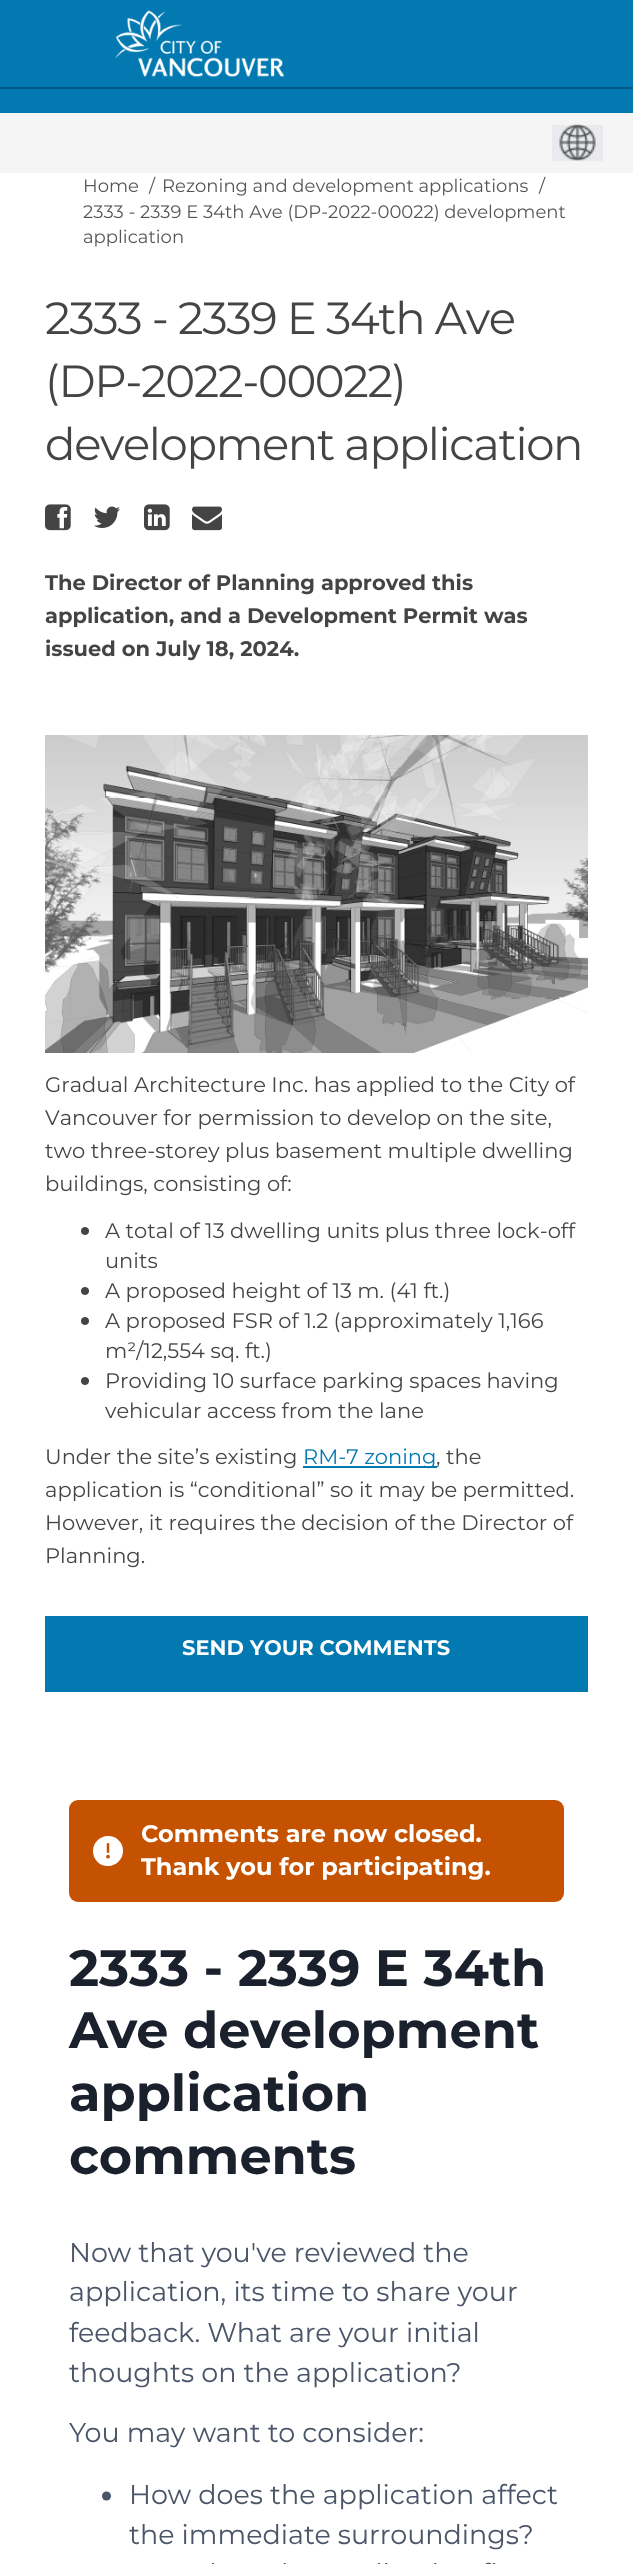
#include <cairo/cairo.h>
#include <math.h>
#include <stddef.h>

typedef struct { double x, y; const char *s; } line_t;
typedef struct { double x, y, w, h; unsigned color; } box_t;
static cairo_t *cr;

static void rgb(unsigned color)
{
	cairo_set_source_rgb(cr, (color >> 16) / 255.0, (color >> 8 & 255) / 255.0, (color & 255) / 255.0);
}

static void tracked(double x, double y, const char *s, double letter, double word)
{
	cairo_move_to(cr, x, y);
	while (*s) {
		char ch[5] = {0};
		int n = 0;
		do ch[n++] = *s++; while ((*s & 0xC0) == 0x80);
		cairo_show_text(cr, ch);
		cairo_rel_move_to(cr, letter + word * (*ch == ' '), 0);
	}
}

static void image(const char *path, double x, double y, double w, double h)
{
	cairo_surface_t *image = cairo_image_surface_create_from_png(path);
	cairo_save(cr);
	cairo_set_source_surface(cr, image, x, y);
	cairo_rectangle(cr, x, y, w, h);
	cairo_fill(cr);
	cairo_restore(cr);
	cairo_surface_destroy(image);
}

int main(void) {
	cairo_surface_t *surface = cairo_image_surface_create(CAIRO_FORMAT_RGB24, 633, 2564);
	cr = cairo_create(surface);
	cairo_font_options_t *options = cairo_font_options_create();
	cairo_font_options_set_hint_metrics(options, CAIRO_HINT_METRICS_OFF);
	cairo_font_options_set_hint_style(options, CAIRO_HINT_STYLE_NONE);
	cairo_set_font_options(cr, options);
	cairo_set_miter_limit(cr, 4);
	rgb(0xffffff);
	cairo_paint(cr);
	rgb(0x0279b1);
	cairo_rectangle(cr, 0, 0, 633, 113);
	cairo_fill(cr);
	image("img/1.png", 115, 10, 170, 67);
	{
		static const box_t items[] = {
			{0, 87, 633, 2, 0x015982},
			{0, 113, 633, 60, 0xf5f5f5},
			{552, 125, 51, 36, 0xe8eaed},
		};
		for (size_t i = 0; i < sizeof items / sizeof *items; i++) {
			rgb(items[i].color);
			cairo_rectangle(cr, items[i].x, items[i].y, items[i].w, items[i].h);
			cairo_fill(cr);
		}
	}
	image("img/2.png", 559, 124, 37, 37);
	image("img/3.png", 45, 504, 26, 27);
	image("img/4.png", 94, 506, 26, 22);
	image("img/5.png", 144, 504, 26, 27);
	image("img/6.png", 192, 506, 30, 25);
	image("img/7.png", 45, 735, 543, 318);
	rgb(0x444444);
	cairo_arc(cr, 85, 1231, 4, 0, 2 * M_PI);
	cairo_fill(cr);
	cairo_arc(cr, 85, 1291, 4, 0, 2 * M_PI);
	cairo_fill(cr);
	cairo_arc(cr, 85, 1321, 4, 0, 2 * M_PI);
	cairo_fill(cr);
	cairo_arc(cr, 85, 1381, 4, 0, 2 * M_PI);
	cairo_fill(cr);
	rgb(0x0279b1);
	cairo_rectangle(cr, 303, 1466, 134, 2);
	cairo_fill(cr);
	cairo_rectangle(cr, 45, 1616, 543, 76);
	cairo_fill(cr);
	image("img/8.png", 68, 1800, 496, 764);
	cairo_select_font_face(cr, "Montserrat", CAIRO_FONT_SLANT_NORMAL, CAIRO_FONT_WEIGHT_NORMAL);
	cairo_set_font_size(cr, 18);
	rgb(0x555555);
	{
		static const line_t items[] = {
			{83, 192, "Home"},
			{149, 192, "/"},
			{162, 192, "Rezoning and development applications"},
			{539, 192, "/"},
			{83, 218, "2333 - 2339 E 34th Ave (DP-2022-00022) development"},
			{83, 243, "application"},
		};
		for (size_t i = 0; i < sizeof items / sizeof *items; i++) {
			cairo_move_to(cr, items[i].x, items[i].y);
			cairo_show_text(cr, items[i].s);
		}
	}
	cairo_set_font_size(cr, 45);
	rgb(0x444444);
	{
		static const line_t items[] = {
			{45, 334, "2333 - 2339 E 34th Ave"},
			{45, 397, "(DP-2022-00022)"},
			{45, 460, "development application"},
		};
		for (size_t i = 0; i < sizeof items / sizeof *items; i++) {
			tracked(items[i].x, items[i].y, items[i].s, -1.35, 0);
		}
	}
	cairo_select_font_face(cr, "Montserrat", CAIRO_FONT_SLANT_NORMAL, CAIRO_FONT_WEIGHT_BOLD);
	cairo_set_font_size(cr, 21);
	{
		static const line_t items[] = {
			{45, 590, "The Director of Planning approved this"},
			{45, 623, "application, and a Development Permit was"},
			{45, 656, "issued on July 18, 2024."},
		};
		for (size_t i = 0; i < sizeof items / sizeof *items; i++) {
			cairo_move_to(cr, items[i].x, items[i].y);
			cairo_show_text(cr, items[i].s);
		}
	}
	cairo_select_font_face(cr, "Montserrat", CAIRO_FONT_SLANT_NORMAL, CAIRO_FONT_WEIGHT_NORMAL);
	{
		static const line_t items[] = {
			{45, 1092, "Gradual Architecture Inc. has applied to the City of"},
			{45, 1125, "Vancouver for permission to develop on the site,"},
			{45, 1158, "two three-storey plus basement multiple dwelling"},
			{45, 1191, "buildings, consisting of:"},
			{105, 1238, "A total of 13 dwelling units plus three lock-off"},
			{105, 1268, "units"},
			{105, 1298, "A proposed height of 13 m. (41 ft.)"},
			{105, 1328, "A proposed FSR of 1.2 (approximately 1,166"},
			{105, 1358, "m²/12,554 sq. ft.)"},
			{105, 1388, "Providing 10 surface parking spaces having"},
			{105, 1418, "vehicular access from the lane"},
			{45, 1464, "Under the site’s existing"},
		};
		for (size_t i = 0; i < sizeof items / sizeof *items; i++) {
			cairo_move_to(cr, items[i].x, items[i].y);
			cairo_show_text(cr, items[i].s);
		}
	}
	rgb(0x0279b1);
	cairo_move_to(cr, 303, 1464);
	cairo_show_text(cr, "RM-7 zoning");
	rgb(0x444444);
	{
		static const line_t items[] = {
			{436, 1464, ", the"},
			{45, 1497, "application is “conditional” so it may be permitted."},
			{45, 1530, "However, it requires the decision of the Director of"},
			{45, 1563, "Planning."},
		};
		for (size_t i = 0; i < sizeof items / sizeof *items; i++) {
			cairo_move_to(cr, items[i].x, items[i].y);
			cairo_show_text(cr, items[i].s);
		}
	}
	cairo_select_font_face(cr, "Montserrat", CAIRO_FONT_SLANT_NORMAL, CAIRO_FONT_WEIGHT_BOLD);
	rgb(0xffffff);
	cairo_move_to(cr, 182, 1655);
	cairo_show_text(cr, "SEND YOUR COMMENTS");
	cairo_surface_write_to_png(surface, "page.png");
	cairo_font_options_destroy(options);
	cairo_destroy(cr);
	cairo_surface_destroy(surface);
	return 0;
}
